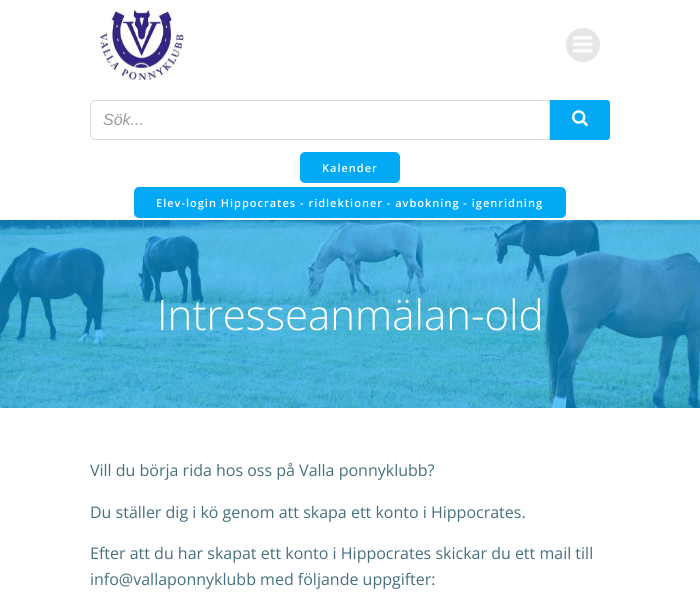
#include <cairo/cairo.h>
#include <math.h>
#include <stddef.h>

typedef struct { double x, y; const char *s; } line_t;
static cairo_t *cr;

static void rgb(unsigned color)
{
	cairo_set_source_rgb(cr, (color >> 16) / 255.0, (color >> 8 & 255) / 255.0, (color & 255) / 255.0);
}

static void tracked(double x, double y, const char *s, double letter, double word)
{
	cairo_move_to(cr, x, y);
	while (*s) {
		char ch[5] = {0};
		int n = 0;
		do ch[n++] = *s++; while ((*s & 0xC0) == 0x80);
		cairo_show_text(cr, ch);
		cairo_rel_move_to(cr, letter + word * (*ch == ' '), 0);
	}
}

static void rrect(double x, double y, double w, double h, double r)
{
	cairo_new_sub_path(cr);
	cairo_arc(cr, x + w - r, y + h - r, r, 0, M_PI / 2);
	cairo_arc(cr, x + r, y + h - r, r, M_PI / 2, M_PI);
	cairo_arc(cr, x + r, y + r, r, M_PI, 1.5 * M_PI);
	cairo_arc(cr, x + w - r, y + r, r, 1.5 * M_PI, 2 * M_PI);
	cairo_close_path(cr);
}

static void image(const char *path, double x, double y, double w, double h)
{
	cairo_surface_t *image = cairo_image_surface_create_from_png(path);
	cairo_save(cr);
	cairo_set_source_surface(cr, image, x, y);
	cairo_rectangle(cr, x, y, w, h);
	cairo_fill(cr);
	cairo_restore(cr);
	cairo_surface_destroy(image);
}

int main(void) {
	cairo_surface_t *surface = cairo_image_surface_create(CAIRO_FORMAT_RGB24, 700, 598);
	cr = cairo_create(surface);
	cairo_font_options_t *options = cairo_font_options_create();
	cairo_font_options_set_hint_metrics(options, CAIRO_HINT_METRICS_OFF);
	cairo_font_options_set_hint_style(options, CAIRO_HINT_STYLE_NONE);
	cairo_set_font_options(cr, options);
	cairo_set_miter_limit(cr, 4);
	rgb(0xffffff);
	cairo_paint(cr);
	image("img/1.png", 100, 10, 84, 70);
	rgb(0xe6e6e6);
	cairo_arc(cr, 583, 45, 17, 0, 2 * M_PI);
	cairo_fill(cr);
	image("img/2.png", 573, 36, 20, 17);
	cairo_new_path(cr);
	cairo_move_to(cr, 95, 100.5);
	cairo_line_to(cr, 549.5, 100.5);
	cairo_line_to(cr, 549.5, 139.5);
	cairo_line_to(cr, 95, 139.5);
	cairo_curve_to(cr, 92.5, 139.5, 90.5, 137.5, 90.5, 135);
	cairo_line_to(cr, 90.5, 105);
	cairo_curve_to(cr, 90.5, 102.5, 92.5, 100.5, 95, 100.5);
	cairo_close_path(cr);
	rgb(0xdedede);
	cairo_set_line_width(cr, 1);
	cairo_stroke(cr);
	rgb(0x03a9f4);
	cairo_new_path(cr);
	cairo_move_to(cr, 550, 100);
	cairo_line_to(cr, 607, 100);
	cairo_curve_to(cr, 608.5, 100, 610, 101.5, 610, 103);
	cairo_line_to(cr, 610, 137);
	cairo_curve_to(cr, 610, 138.5, 608.5, 140, 607, 140);
	cairo_line_to(cr, 550, 140);
	cairo_close_path(cr);
	cairo_fill(cr);
	image("img/3.png", 572, 110, 16, 17);
	rrect(301, 153, 98, 29, 4);
	cairo_fill_preserve(cr);
	cairo_set_line_width(cr, 2);
	cairo_stroke(cr);
	rrect(135, 188, 430, 29, 4);
	cairo_fill_preserve(cr);
	cairo_stroke(cr);
	image("img/4.png", 0, 220, 700, 188);
	cairo_select_font_face(cr, "Liberation Sans", CAIRO_FONT_SLANT_ITALIC, CAIRO_FONT_WEIGHT_NORMAL);
	cairo_set_font_size(cr, 16);
	rgb(0x999999);
	cairo_move_to(cr, 103, 125);
	cairo_show_text(cr, "Sök...");
	cairo_select_font_face(cr, "Open Sans SemiBold", CAIRO_FONT_SLANT_NORMAL, CAIRO_FONT_WEIGHT_NORMAL);
	cairo_set_font_size(cr, 11);
	rgb(0xffffff);
	tracked(322, 172, "Kalender", 1, 0);
	tracked(156, 207, "Elev-login Hippocrates - ridlektioner - avbokning - igenridning", 1, 0);
	cairo_select_font_face(cr, "Open Sans Light", CAIRO_FONT_SLANT_NORMAL, CAIRO_FONT_WEIGHT_NORMAL);
	cairo_set_font_size(cr, 42);
	cairo_move_to(cr, 157, 330);
	cairo_show_text(cr, "Intresseanmälan-old");
	cairo_select_font_face(cr, "Open Sans", CAIRO_FONT_SLANT_NORMAL, CAIRO_FONT_WEIGHT_NORMAL);
	cairo_set_font_size(cr, 16);
	rgb(0x46707f);
	{
		static const line_t items[] = {
			{90, 476, "Vill du börja rida hos oss på Valla ponnyklubb?"},
			{90, 518, "Du ställer dig i kö genom att skapa ett konto i Hippocrates."},
			{90, 559, "Efter att du har skapat ett konto i Hippocrates skickar du ett mail till"},
			{90, 585, "info@vallaponnyklubb med följande uppgifter:"},
		};
		for (size_t i = 0; i < sizeof items / sizeof *items; i++) {
			cairo_move_to(cr, items[i].x, items[i].y);
			cairo_show_text(cr, items[i].s);
		}
	}
	cairo_surface_write_to_png(surface, "page.png");
	cairo_font_options_destroy(options);
	cairo_destroy(cr);
	cairo_surface_destroy(surface);
	return 0;
}
